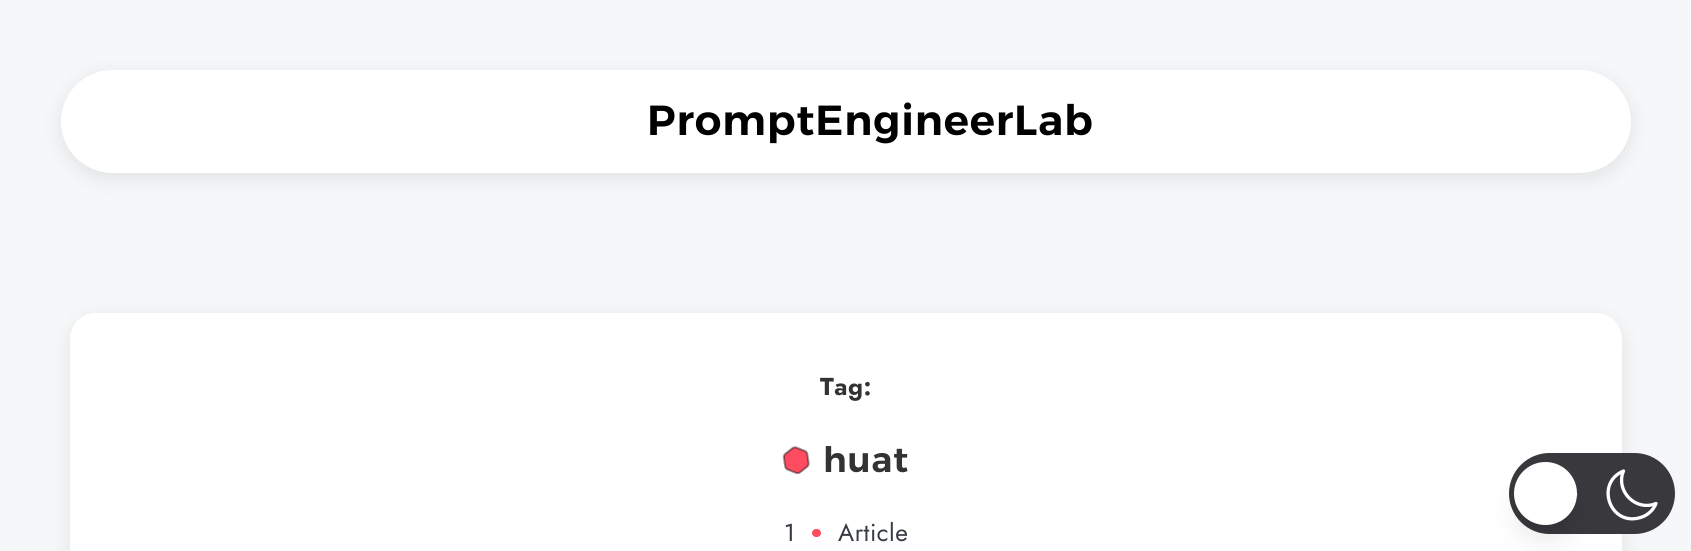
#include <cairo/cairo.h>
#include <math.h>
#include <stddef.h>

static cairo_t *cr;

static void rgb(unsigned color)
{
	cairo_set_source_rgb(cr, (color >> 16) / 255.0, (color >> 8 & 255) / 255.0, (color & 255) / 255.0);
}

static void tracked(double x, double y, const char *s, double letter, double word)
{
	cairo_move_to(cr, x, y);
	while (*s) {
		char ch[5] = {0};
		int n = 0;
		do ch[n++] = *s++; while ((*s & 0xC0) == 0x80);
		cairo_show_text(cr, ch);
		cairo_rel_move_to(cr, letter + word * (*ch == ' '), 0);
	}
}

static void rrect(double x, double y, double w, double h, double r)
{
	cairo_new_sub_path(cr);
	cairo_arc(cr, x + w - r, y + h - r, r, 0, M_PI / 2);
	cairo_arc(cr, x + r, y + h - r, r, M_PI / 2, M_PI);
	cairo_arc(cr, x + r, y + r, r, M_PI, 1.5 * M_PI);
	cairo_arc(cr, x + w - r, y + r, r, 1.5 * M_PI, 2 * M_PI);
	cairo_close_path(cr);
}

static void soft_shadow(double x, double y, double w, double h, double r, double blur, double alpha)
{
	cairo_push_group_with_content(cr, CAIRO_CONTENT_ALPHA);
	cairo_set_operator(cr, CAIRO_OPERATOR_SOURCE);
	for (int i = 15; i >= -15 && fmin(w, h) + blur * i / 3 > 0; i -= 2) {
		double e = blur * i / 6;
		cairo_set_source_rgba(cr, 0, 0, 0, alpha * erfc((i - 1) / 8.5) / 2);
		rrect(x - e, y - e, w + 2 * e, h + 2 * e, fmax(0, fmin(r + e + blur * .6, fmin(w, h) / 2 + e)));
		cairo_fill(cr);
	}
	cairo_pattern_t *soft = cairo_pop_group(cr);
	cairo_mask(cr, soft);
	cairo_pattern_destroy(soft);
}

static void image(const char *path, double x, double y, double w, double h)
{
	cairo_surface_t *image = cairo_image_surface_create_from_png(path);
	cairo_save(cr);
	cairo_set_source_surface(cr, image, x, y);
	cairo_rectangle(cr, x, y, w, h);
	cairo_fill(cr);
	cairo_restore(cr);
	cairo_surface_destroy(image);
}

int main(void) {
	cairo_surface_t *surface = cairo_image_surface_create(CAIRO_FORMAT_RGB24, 1691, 551);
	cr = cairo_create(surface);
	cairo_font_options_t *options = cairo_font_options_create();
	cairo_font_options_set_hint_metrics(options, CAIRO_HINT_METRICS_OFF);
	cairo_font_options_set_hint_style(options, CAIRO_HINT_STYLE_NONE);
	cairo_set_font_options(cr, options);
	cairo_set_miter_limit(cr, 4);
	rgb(0xf5f7f8);
	cairo_paint(cr);
	rgb(0x070a19);
	soft_shadow(63, 77, 1566, 100, 50, 10.5, 0.1);
	rgb(0xffffff);
	rrect(61, 70, 1570, 103, 51.5);
	cairo_fill(cr);
	rgb(0x070a19);
	soft_shadow(72, 320, 1549, 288, 25, 10.5, 0.1);
	rgb(0xffffff);
	rrect(70, 313, 1552, 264, 26);
	cairo_fill(cr);
	image("img/1.png", 782, 446, 28, 28);
	rgb(0xff4c60);
	rrect(812, 529, 9, 8, 4);
	cairo_fill(cr);
	rgb(0x39393d);
	rrect(1509, 453, 166, 81, 40.5);
	cairo_fill(cr);
	cairo_new_path(cr);
	cairo_move_to(cr, 1551.5, 470.5);
	cairo_line_to(cr, 1551.5, 476.5);
	cairo_move_to(cr, 1568.5, 477.5);
	cairo_line_to(cr, 1564.5, 482);
	cairo_move_to(cr, 1575.5, 494.5);
	cairo_line_to(cr, 1569.5, 494.5);
	cairo_move_to(cr, 1568.5, 511.5);
	cairo_line_to(cr, 1564.5, 507.5);
	cairo_move_to(cr, 1551.5, 512.5);
	cairo_line_to(cr, 1551.5, 518.5);
	cairo_move_to(cr, 1539, 507.5);
	cairo_line_to(cr, 1534.5, 511.5);
	cairo_move_to(cr, 1533.5, 494.5);
	cairo_line_to(cr, 1527.5, 494.5);
	cairo_move_to(cr, 1539, 482);
	cairo_line_to(cr, 1534.5, 477.5);
	cairo_move_to(cr, 1561.5, 494.5);
	cairo_curve_to(cr, 1561.5, 508, 1541.5, 508, 1541.5, 494.5);
	cairo_curve_to(cr, 1541.5, 481.5, 1561.5, 481.5, 1561.5, 494.5);
	cairo_close_path(cr);
	rgb(0xffffff);
	cairo_set_line_width(cr, 3.4);
	cairo_set_line_cap(cr, CAIRO_LINE_CAP_ROUND);
	cairo_set_line_join(cr, CAIRO_LINE_JOIN_ROUND);
	cairo_stroke(cr);
	rgb(0x000000);
	soft_shadow(1521, 476, 49, 49, 24.5, 5, 0.1);
	cairo_new_path(cr);
	cairo_move_to(cr, 1656, 503.5);
	cairo_curve_to(cr, 1636, 512, 1615, 491, 1623.5, 471);
	cairo_curve_to(cr, 1594.5, 483, 1610, 527, 1640.5, 517.5);
	cairo_curve_to(cr, 1647.5, 515.5, 1653.5, 510, 1656, 503.5);
	cairo_close_path(cr);
	rgb(0xffffff);
	cairo_set_line_width(cr, 3.3);
	cairo_stroke(cr);
	rgb(0x000000);
	soft_shadow(1519, 485, 53, 52, 26, 13, 0.1);
	rgb(0xffffff);
	cairo_arc(cr, 1545.5, 493.5, 31.5, 0, 2 * M_PI);
	cairo_fill(cr);
	cairo_select_font_face(cr, "Alexandria SemiBold", CAIRO_FONT_SLANT_NORMAL, CAIRO_FONT_WEIGHT_NORMAL);
	cairo_set_font_size(cr, 42);
	rgb(0x000000);
	tracked(647, 135, "PromptEngineerLab", 0.9, 0);
	cairo_select_font_face(cr, "Jost", CAIRO_FONT_SLANT_NORMAL, CAIRO_FONT_WEIGHT_BOLD);
	cairo_set_font_size(cr, 24.5);
	rgb(0x333333);
	tracked(820, 395, "Tag:", 0.5, 0);
	cairo_select_font_face(cr, "Alexandria SemiBold", CAIRO_FONT_SLANT_NORMAL, CAIRO_FONT_WEIGHT_NORMAL);
	cairo_set_font_size(cr, 35);
	tracked(823, 472, "huat", 0.9, 0);
	cairo_select_font_face(cr, "Jost", CAIRO_FONT_SLANT_NORMAL, CAIRO_FONT_WEIGHT_NORMAL);
	cairo_set_font_size(cr, 24.5);
	rgb(0x353a44);
	tracked(784, 541, "1", 0.5, 0);
	tracked(838, 541, "Article", 0.5, 0);
	cairo_surface_write_to_png(surface, "page.png");
	cairo_font_options_destroy(options);
	cairo_destroy(cr);
	cairo_surface_destroy(surface);
	return 0;
}
